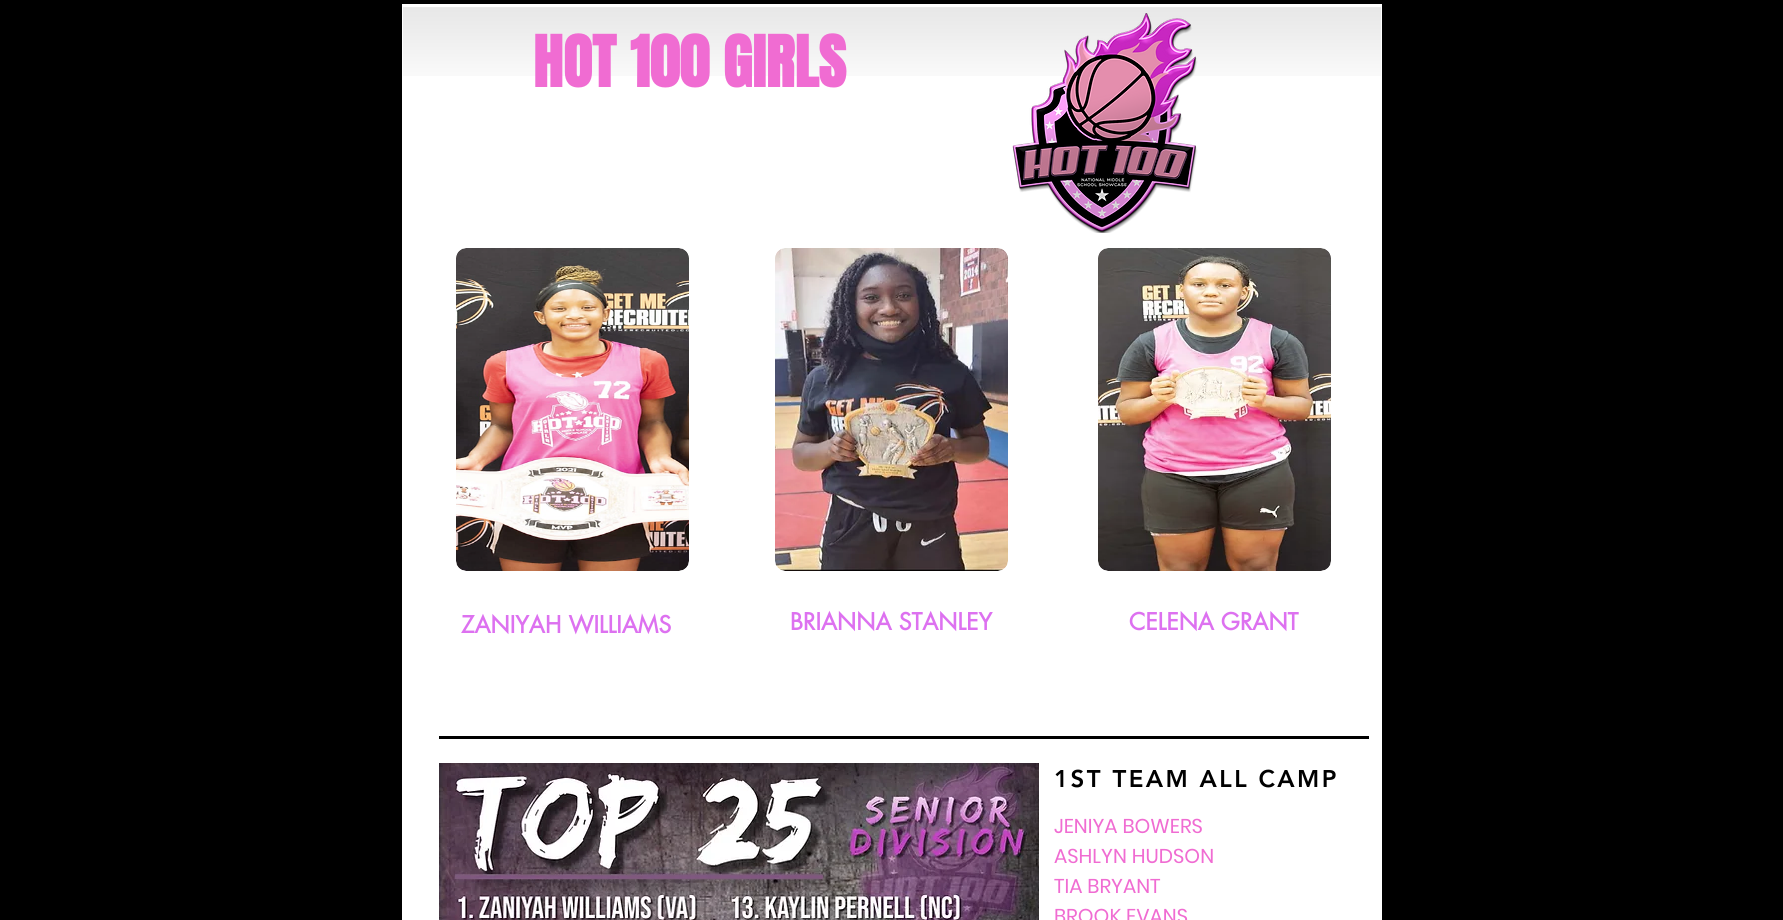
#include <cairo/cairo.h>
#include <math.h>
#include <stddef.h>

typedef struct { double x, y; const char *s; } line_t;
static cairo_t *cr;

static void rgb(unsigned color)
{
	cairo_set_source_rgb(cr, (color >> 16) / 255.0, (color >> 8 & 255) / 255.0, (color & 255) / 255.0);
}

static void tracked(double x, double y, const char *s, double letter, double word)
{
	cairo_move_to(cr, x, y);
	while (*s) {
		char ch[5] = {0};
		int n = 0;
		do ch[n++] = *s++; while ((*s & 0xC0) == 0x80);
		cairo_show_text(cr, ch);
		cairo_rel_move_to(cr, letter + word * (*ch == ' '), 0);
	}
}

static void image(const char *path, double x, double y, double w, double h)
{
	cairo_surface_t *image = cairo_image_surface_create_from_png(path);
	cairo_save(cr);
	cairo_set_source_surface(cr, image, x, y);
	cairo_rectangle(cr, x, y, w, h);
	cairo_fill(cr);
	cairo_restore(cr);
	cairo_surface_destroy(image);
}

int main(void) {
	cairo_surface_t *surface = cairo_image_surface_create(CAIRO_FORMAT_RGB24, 1783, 920);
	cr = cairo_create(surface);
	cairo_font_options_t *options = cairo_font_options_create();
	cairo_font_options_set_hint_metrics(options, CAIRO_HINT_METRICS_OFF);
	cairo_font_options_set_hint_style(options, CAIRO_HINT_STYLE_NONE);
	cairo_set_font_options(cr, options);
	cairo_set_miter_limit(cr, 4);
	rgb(0x000000);
	cairo_paint(cr);
	rgb(0xffffff);
	cairo_rectangle(cr, 403, 5, 978, 915);
	cairo_fill(cr);
	image("img/1.png", 403, 7, 978, 69);
	cairo_rectangle(cr, 402.5, 4.5, 979, 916);
	cairo_set_line_width(cr, 1);
	cairo_stroke(cr);
	image("img/2.png", 1012, 13, 186, 220);
	image("img/3.png", 456, 248, 233, 323);
	image("img/4.png", 775, 248, 233, 323);
	image("img/5.png", 1098, 248, 233, 323);
	rgb(0x000000);
	cairo_rectangle(cr, 439, 736, 930, 3);
	cairo_fill(cr);
	image("img/6.png", 439, 763, 600, 157);
	cairo_select_font_face(cr, "Anton", CAIRO_FONT_SLANT_NORMAL, CAIRO_FONT_WEIGHT_BOLD);
	cairo_set_font_size(cr, 60);
	rgb(0xf06cd2);
	cairo_move_to(cr, 533, 87);
	cairo_show_text(cr, "HOT 100 GIRLS");
	cairo_select_font_face(cr, "futura", CAIRO_FONT_SLANT_NORMAL, CAIRO_FONT_WEIGHT_BOLD);
	cairo_set_font_size(cr, 23);
	rgb(0xdd71f0);
	{
		static const line_t items[] = {
			{461, 633, "ZANIYAH WILLIAMS"},
			{790, 630, "BRIANNA STANLEY"},
			{1129, 630, "CELENA GRANT"},
		};
		for (size_t i = 0; i < sizeof items / sizeof *items; i++) {
			cairo_move_to(cr, items[i].x, items[i].y);
			cairo_show_text(cr, items[i].s);
		}
	}
	cairo_select_font_face(cr, "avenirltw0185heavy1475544 Black", CAIRO_FONT_SLANT_NORMAL, CAIRO_FONT_WEIGHT_NORMAL);
	cairo_set_font_size(cr, 24);
	rgb(0x000000);
	tracked(1054, 787, "1ST TEAM ALL CAMP", 2.4, 0);
	cairo_select_font_face(cr, "Poppins", CAIRO_FONT_SLANT_NORMAL, CAIRO_FONT_WEIGHT_NORMAL);
	cairo_set_font_size(cr, 20);
	rgb(0xf06cd2);
	{
		static const line_t items[] = {
			{1054, 833, "JENIYA BOWERS"},
			{1054, 863, "ASHLYN HUDSON"},
			{1054, 893, "TIA BRYANT"},
			{1054, 923, "BROOK EVANS"},
		};
		for (size_t i = 0; i < sizeof items / sizeof *items; i++) {
			cairo_move_to(cr, items[i].x, items[i].y);
			cairo_show_text(cr, items[i].s);
		}
	}
	cairo_surface_write_to_png(surface, "page.png");
	cairo_font_options_destroy(options);
	cairo_destroy(cr);
	cairo_surface_destroy(surface);
	return 0;
}
